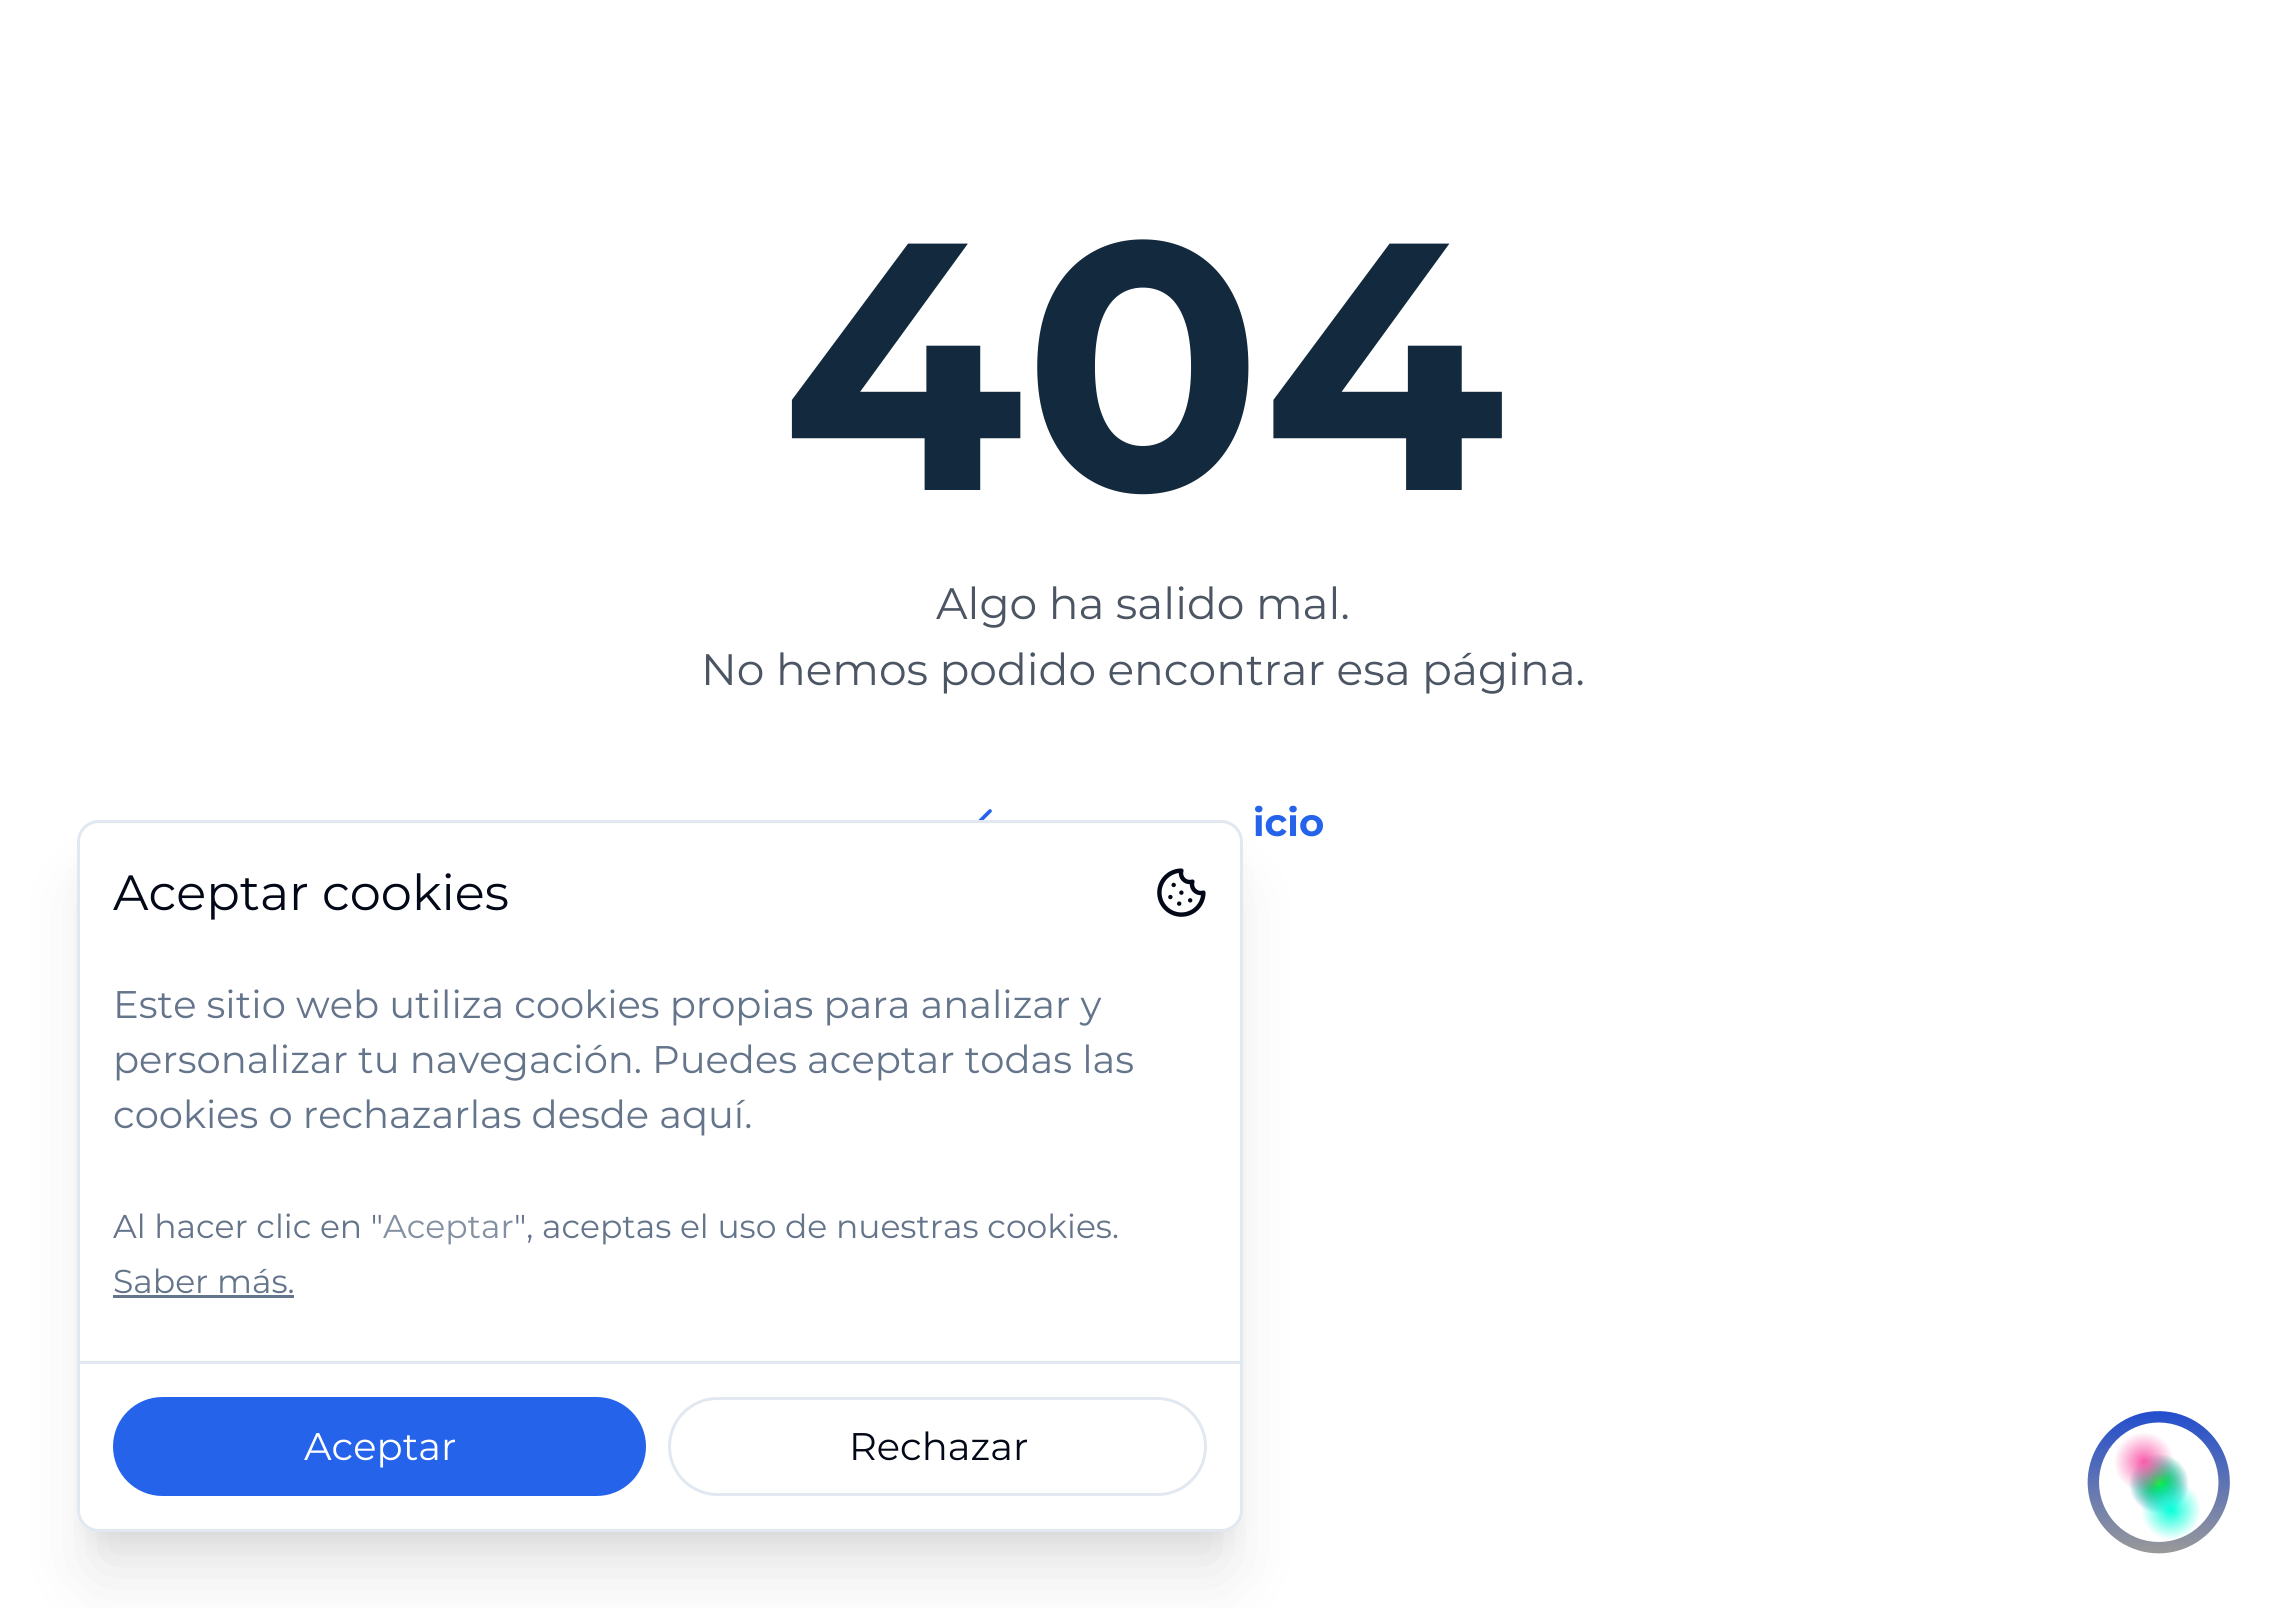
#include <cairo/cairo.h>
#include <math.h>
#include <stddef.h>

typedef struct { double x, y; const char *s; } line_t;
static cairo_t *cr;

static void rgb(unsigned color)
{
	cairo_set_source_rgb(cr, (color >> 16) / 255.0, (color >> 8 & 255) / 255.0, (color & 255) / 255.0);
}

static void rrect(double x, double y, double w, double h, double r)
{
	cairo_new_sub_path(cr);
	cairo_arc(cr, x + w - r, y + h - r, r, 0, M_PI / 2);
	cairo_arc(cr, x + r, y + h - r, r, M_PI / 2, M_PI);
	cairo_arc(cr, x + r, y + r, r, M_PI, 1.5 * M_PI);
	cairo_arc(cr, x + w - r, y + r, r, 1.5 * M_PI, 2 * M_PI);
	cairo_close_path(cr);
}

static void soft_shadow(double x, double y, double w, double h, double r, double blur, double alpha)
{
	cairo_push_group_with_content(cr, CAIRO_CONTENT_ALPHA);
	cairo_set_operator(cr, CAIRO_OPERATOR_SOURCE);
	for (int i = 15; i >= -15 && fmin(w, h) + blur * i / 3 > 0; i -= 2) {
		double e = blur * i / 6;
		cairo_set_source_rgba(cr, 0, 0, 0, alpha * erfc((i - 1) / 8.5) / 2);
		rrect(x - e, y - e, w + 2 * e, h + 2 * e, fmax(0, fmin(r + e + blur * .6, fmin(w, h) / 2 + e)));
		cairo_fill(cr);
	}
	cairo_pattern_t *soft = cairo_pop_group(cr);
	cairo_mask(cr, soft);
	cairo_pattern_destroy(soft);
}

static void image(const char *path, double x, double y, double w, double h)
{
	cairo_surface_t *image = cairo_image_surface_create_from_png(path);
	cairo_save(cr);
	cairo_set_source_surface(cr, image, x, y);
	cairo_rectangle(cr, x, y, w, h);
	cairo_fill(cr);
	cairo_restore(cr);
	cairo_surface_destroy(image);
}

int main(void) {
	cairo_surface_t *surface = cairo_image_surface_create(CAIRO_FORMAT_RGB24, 2285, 1608);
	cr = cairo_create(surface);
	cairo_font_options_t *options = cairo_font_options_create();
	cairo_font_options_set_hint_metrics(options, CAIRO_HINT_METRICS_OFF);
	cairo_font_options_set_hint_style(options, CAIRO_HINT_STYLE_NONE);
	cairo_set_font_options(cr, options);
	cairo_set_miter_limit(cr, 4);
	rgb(0xffffff);
	cairo_paint(cr);
	cairo_new_path(cr);
	cairo_move_to(cr, 990, 833);
	cairo_line_to(cr, 979, 822);
	cairo_line_to(cr, 990, 811);
	rgb(0x2563eb);
	cairo_set_line_width(cr, 3.7);
	cairo_set_line_cap(cr, CAIRO_LINE_CAP_ROUND);
	cairo_set_line_join(cr, CAIRO_LINE_JOIN_ROUND);
	cairo_stroke(cr);
	rgb(0x000000);
	soft_shadow(94, 858, 1133, 679, 6, 14, 0.1);
	soft_shadow(91, 888, 1138, 685, 8, 34.5, 0.1);
	rgb(0xffffff);
	rrect(78.5, 821.5, 1163, 709, 20.5);
	cairo_fill_preserve(cr);
	rgb(0xe2e8f0);
	cairo_set_line_width(cr, 3);
	cairo_set_line_cap(cr, CAIRO_LINE_CAP_BUTT);
	cairo_set_line_join(cr, CAIRO_LINE_JOIN_MITER);
	cairo_stroke(cr);
	image("img/1.png", 1157, 868, 49, 49);
	rgb(0x64748b);
	cairo_rectangle(cr, 113, 1295, 181, 3);
	cairo_fill(cr);
	rgb(0xe2e8f0);
	cairo_rectangle(cr, 80, 1361, 1160, 3);
	cairo_fill(cr);
	rgb(0x2563eb);
	rrect(113, 1397, 533, 99, 49.5);
	cairo_fill(cr);
	rrect(669.5, 1398.5, 536, 96, 48);
	rgb(0xe2e8f0);
	cairo_stroke(cr);
	image("img/2.png", 2087, 1411, 143, 143);
	cairo_select_font_face(cr, "Montserrat", CAIRO_FONT_SLANT_NORMAL, CAIRO_FONT_WEIGHT_BOLD);
	cairo_set_font_size(cr, 352);
	rgb(0x13293d);
	cairo_move_to(cr, 781, 490);
	cairo_show_text(cr, "404");
	cairo_select_font_face(cr, "Montserrat", CAIRO_FONT_SLANT_NORMAL, CAIRO_FONT_WEIGHT_NORMAL);
	cairo_set_font_size(cr, 44);
	rgb(0x4b5563);
	cairo_move_to(cr, 936, 619);
	cairo_show_text(cr, "Algo ha salido mal.");
	cairo_move_to(cr, 701, 685);
	cairo_show_text(cr, "No hemos podido encontrar esa página.");
	cairo_select_font_face(cr, "Montserrat", CAIRO_FONT_SLANT_NORMAL, CAIRO_FONT_WEIGHT_BOLD);
	cairo_set_font_size(cr, 38.5);
	rgb(0x2563eb);
	cairo_move_to(cr, 1253, 836);
	cairo_show_text(cr, "icio");
	cairo_select_font_face(cr, "Montserrat", CAIRO_FONT_SLANT_NORMAL, CAIRO_FONT_WEIGHT_NORMAL);
	cairo_set_font_size(cr, 49.5);
	rgb(0x020817);
	cairo_move_to(cr, 113, 910);
	cairo_show_text(cr, "Aceptar cookies");
	cairo_set_font_size(cr, 38.5);
	rgb(0x64748b);
	{
		static const line_t items[] = {
			{113, 1018, "Este sitio web utiliza cookies propias para analizar y"},
			{113, 1073, "personalizar tu navegación. Puedes aceptar todas las"},
			{113, 1128, "cookies o rechazarlas desde aquí."},
		};
		for (size_t i = 0; i < sizeof items / sizeof *items; i++) {
			cairo_move_to(cr, items[i].x, items[i].y);
			cairo_show_text(cr, items[i].s);
		}
	}
	cairo_set_font_size(cr, 33);
	cairo_move_to(cr, 113, 1238);
	cairo_show_text(cr, "Al hacer clic en \"");
	rgb(0x8390a2);
	cairo_move_to(cr, 383, 1238);
	cairo_show_text(cr, "Aceptar");
	rgb(0x64748b);
	cairo_move_to(cr, 514, 1238);
	cairo_show_text(cr, "\", aceptas el uso de nuestras cookies.");
	cairo_move_to(cr, 113, 1293);
	cairo_show_text(cr, "Saber más.");
	cairo_set_font_size(cr, 38.5);
	rgb(0xffffff);
	cairo_move_to(cr, 304, 1460);
	cairo_show_text(cr, "Aceptar");
	rgb(0x020817);
	cairo_move_to(cr, 849, 1460);
	cairo_show_text(cr, "Rechazar");
	cairo_surface_write_to_png(surface, "page.png");
	cairo_font_options_destroy(options);
	cairo_destroy(cr);
	cairo_surface_destroy(surface);
	return 0;
}
